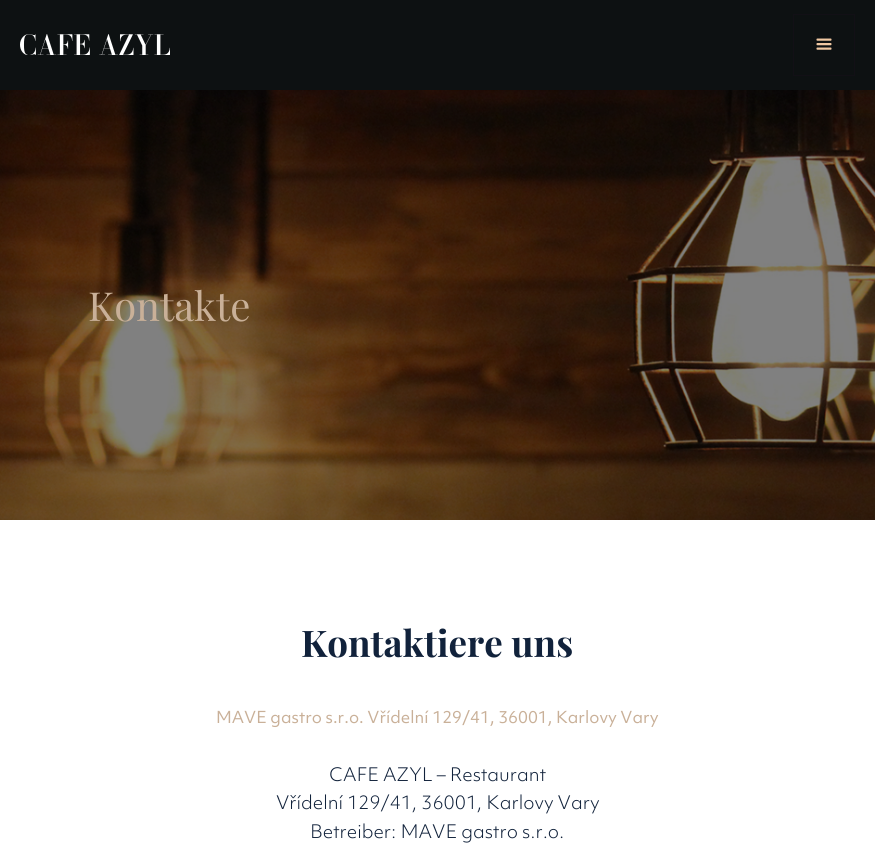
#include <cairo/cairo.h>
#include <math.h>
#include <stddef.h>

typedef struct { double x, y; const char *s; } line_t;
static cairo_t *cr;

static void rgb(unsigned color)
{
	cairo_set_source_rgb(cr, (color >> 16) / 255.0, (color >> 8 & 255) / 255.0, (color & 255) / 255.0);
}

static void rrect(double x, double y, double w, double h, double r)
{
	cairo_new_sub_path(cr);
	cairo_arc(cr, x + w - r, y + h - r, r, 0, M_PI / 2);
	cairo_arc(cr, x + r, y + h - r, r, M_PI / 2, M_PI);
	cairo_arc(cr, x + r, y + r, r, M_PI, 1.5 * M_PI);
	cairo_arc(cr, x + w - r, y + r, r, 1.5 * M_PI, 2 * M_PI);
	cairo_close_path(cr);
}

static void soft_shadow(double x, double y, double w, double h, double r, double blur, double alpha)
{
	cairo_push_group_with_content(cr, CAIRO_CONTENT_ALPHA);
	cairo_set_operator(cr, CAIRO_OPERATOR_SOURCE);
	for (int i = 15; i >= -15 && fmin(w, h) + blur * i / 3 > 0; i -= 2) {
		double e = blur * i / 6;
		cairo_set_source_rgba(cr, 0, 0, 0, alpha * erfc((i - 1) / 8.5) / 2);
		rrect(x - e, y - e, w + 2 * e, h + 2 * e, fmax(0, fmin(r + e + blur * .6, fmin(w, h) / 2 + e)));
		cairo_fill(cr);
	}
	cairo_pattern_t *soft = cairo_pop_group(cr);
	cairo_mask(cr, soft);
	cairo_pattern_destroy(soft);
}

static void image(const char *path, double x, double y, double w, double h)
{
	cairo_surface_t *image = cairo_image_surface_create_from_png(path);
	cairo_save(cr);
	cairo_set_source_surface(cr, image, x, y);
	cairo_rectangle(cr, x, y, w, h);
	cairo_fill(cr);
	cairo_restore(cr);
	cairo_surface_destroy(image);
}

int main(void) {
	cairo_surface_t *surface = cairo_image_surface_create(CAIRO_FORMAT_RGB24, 875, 859);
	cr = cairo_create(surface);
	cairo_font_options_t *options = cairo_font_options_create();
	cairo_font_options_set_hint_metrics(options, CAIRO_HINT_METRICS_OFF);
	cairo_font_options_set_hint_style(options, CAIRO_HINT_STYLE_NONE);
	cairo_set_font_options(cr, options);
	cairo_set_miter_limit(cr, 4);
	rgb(0xffffff);
	cairo_paint(cr);
	image("img/3.png", 0, 90, 875, 430);
	rgb(0x090725);
	soft_shadow(2, 16, 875, 90, 0, 17.5, 0.06);
	rgb(0x0d1112);
	cairo_rectangle(cr, 0, 0, 875, 90);
	cairo_fill(cr);
	image("img/1.png", 20, 34, 150, 21);
	cairo_rectangle(cr, 793.5, 14.5, 61, 61);
	rgb(0x121016);
	cairo_set_line_width(cr, 1);
	cairo_stroke(cr);
	image("img/2.png", 816, 38, 16, 12);
	cairo_select_font_face(cr, "Playfair Display", CAIRO_FONT_SLANT_NORMAL, CAIRO_FONT_WEIGHT_NORMAL);
	cairo_set_font_size(cr, 40);
	rgb(0xc9b098);
	cairo_move_to(cr, 88, 321);
	cairo_show_text(cr, "Kontakte");
	cairo_select_font_face(cr, "Playfair Display", CAIRO_FONT_SLANT_NORMAL, CAIRO_FONT_WEIGHT_BOLD);
	cairo_set_font_size(cr, 36.75);
	rgb(0x11223b);
	cairo_move_to(cr, 301, 657);
	cairo_show_text(cr, "Kontaktiere uns");
	cairo_select_font_face(cr, "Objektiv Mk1", CAIRO_FONT_SLANT_NORMAL, CAIRO_FONT_WEIGHT_NORMAL);
	cairo_set_font_size(cr, 16);
	rgb(0xc9b098);
	cairo_move_to(cr, 216, 723);
	cairo_show_text(cr, "MAVE gastro s.r.o. Vřídelní 129/41, 36001, Karlovy Vary");
	cairo_select_font_face(cr, "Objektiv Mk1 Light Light", CAIRO_FONT_SLANT_NORMAL, CAIRO_FONT_WEIGHT_NORMAL);
	cairo_set_font_size(cr, 18);
	rgb(0x11223b);
	{
		static const line_t items[] = {
			{329, 781, "CAFE AZYL – Restaurant"},
			{276, 809, "Vřídelní 129/41, 36001, Karlovy Vary"},
			{310, 838, "Betreiber: MAVE gastro s.r.o."},
		};
		for (size_t i = 0; i < sizeof items / sizeof *items; i++) {
			cairo_move_to(cr, items[i].x, items[i].y);
			cairo_show_text(cr, items[i].s);
		}
	}
	cairo_surface_write_to_png(surface, "page.png");
	cairo_font_options_destroy(options);
	cairo_destroy(cr);
	cairo_surface_destroy(surface);
	return 0;
}
